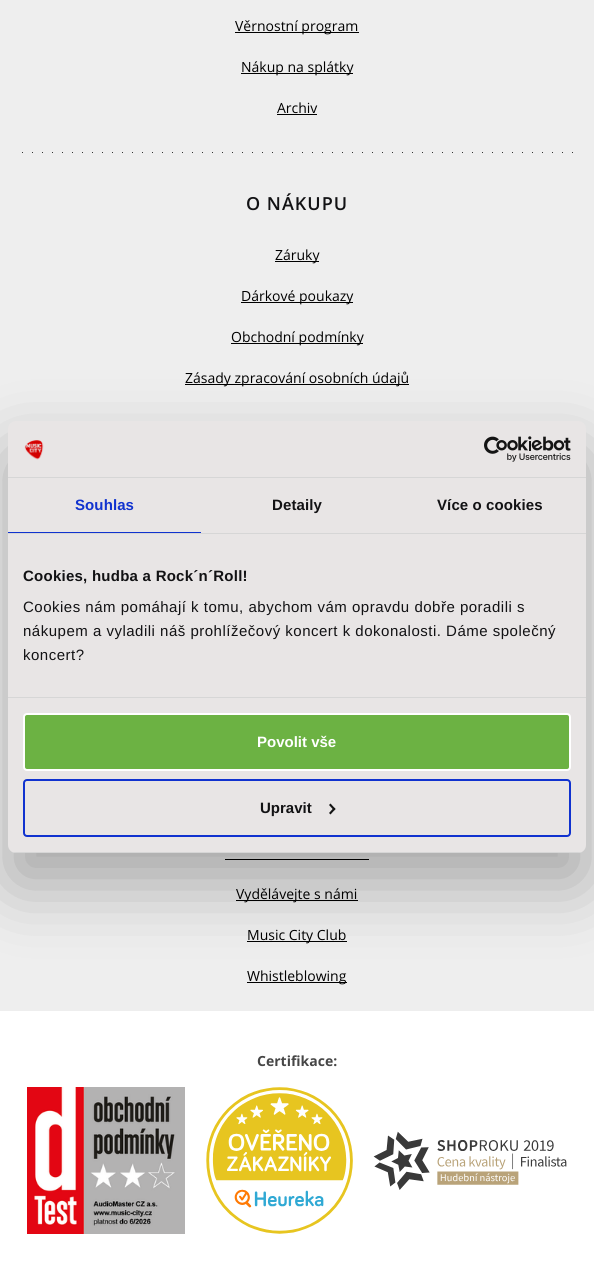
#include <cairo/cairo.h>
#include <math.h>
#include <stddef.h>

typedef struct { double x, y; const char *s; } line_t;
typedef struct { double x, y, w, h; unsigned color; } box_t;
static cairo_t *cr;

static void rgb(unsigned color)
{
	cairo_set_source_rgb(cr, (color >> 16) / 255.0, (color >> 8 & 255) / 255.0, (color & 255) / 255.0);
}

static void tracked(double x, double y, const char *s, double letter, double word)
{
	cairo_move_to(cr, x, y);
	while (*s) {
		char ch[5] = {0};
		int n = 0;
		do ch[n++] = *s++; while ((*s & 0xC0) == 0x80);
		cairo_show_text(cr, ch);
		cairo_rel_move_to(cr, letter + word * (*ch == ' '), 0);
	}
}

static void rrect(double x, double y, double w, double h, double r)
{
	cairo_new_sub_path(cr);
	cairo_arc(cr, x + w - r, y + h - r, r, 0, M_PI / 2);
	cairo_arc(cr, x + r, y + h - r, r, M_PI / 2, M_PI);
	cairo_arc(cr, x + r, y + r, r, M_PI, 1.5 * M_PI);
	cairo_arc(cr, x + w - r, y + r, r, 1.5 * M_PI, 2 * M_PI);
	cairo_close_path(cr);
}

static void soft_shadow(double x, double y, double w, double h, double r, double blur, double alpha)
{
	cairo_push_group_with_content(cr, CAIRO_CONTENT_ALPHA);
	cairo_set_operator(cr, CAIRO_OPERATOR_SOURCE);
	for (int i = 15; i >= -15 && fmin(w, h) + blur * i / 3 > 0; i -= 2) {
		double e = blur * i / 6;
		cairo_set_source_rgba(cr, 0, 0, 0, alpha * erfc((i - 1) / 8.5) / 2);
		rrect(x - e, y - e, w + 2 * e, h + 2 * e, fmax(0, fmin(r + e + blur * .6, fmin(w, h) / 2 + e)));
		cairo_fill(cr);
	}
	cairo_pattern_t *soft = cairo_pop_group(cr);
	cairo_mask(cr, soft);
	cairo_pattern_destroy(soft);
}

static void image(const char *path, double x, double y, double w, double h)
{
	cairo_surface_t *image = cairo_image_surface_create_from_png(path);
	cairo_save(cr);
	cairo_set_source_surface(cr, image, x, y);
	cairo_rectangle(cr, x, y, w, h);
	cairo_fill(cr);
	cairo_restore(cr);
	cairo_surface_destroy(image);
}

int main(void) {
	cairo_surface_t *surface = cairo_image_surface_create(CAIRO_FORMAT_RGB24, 594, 1274);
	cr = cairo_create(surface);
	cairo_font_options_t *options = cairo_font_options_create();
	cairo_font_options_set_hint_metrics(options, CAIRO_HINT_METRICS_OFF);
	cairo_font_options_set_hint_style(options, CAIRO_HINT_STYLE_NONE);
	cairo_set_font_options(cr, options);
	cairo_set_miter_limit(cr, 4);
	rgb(0xeeeeee);
	cairo_paint(cr);
	image("img/1.png", 22, 152, 551, 1);
	{
		static const box_t items[] = {
			{235, 32, 124, 1, 0x000000},
			{241, 73, 112, 1, 0x000000},
			{277, 114, 40, 1, 0x000000},
			{275, 261, 44, 1, 0x000000},
			{241, 302, 112, 1, 0x000000},
			{231, 343, 132, 1, 0x000000},
			{185, 384, 224, 1, 0x000000},
			{225, 859, 144, 1, 0x000000},
			{236, 900, 122, 1, 0x000000},
			{247, 941, 100, 1, 0x000000},
			{247, 982, 100, 1, 0x000000},
			{0, 1011, 594, 263, 0xffffff},
		};
		for (size_t i = 0; i < sizeof items / sizeof *items; i++) {
			rgb(items[i].color);
			cairo_rectangle(cr, items[i].x, items[i].y, items[i].w, items[i].h);
			cairo_fill(cr);
		}
	}
	image("img/2.png", 27, 1087, 158, 147);
	image("img/3.png", 206, 1087, 147, 147);
	image("img/4.png", 373, 1131, 194, 59);
	rgb(0x000000);
	soft_shadow(8, 453, 578, 432, 8, 34, 0.3);
	rgb(0xe8e5e5);
	rrect(8, 421, 578, 432, 8);
	cairo_fill(cr);
	rgb(0xd6d6d6);
	cairo_rectangle(cr, 8, 477, 578, 1);
	cairo_fill(cr);
	image("img/5.png", 24, 440, 20, 20);
	image("img/6.png", 484, 436, 87, 26);
	{
		static const box_t items[] = {
			{8, 533, 578, 1, 0xd6d6d6},
			{8, 532, 193, 1, 0x1032cf},
			{8, 697, 578, 1, 0xd6d6d6},
		};
		for (size_t i = 0; i < sizeof items / sizeof *items; i++) {
			rgb(items[i].color);
			cairo_rectangle(cr, items[i].x, items[i].y, items[i].w, items[i].h);
			cairo_fill(cr);
		}
	}
	cairo_save(cr);
	rrect(8, 421, 578, 432, 8);
	cairo_clip(cr);
	cairo_rectangle(cr, 8, 852, 578, 1);
	cairo_fill(cr);
	cairo_restore(cr);
	rgb(0x6cb243);
	rrect(24, 714, 546, 56, 3);
	cairo_fill_preserve(cr);
	rgb(0xffffff);
	cairo_stroke(cr);
	rrect(24, 780, 546, 56, 3);
	rgb(0x1032cf);
	cairo_stroke(cr);
	rgb(0x141414);
	cairo_new_path(cr);
	cairo_move_to(cr, 330.5, 803.5);
	cairo_line_to(cr, 335.5, 809);
	cairo_line_to(cr, 334, 810.5);
	cairo_line_to(cr, 329, 805);
	cairo_close_path(cr);
	cairo_fill(cr);
	cairo_new_path(cr);
	cairo_move_to(cr, 334, 807.5);
	cairo_line_to(cr, 335.5, 809);
	cairo_line_to(cr, 330.5, 814.5);
	cairo_line_to(cr, 329, 813);
	cairo_close_path(cr);
	cairo_fill(cr);
	cairo_select_font_face(cr, "Open Sans", CAIRO_FONT_SLANT_NORMAL, CAIRO_FONT_WEIGHT_NORMAL);
	cairo_set_font_size(cr, 14);
	rgb(0x000000);
	{
		static const line_t items[] = {
			{235, 31, "Věrnostní program"},
			{241, 72, "Nákup na splátky"},
			{277, 113, "Archiv"},
		};
		for (size_t i = 0; i < sizeof items / sizeof *items; i++) {
			cairo_move_to(cr, items[i].x, items[i].y);
			cairo_show_text(cr, items[i].s);
		}
	}
	cairo_select_font_face(cr, "Open Sans SemiBold", CAIRO_FONT_SLANT_NORMAL, CAIRO_FONT_WEIGHT_NORMAL);
	cairo_set_font_size(cr, 18);
	rgb(0x121214);
	tracked(246, 210, "O NÁKUPU", 1, 0);
	cairo_select_font_face(cr, "Open Sans", CAIRO_FONT_SLANT_NORMAL, CAIRO_FONT_WEIGHT_NORMAL);
	cairo_set_font_size(cr, 14);
	rgb(0x000000);
	{
		static const line_t items[] = {
			{275, 260, "Záruky"},
			{241, 301, "Dárkové poukazy"},
			{231, 342, "Obchodní podmínky"},
			{185, 383, "Zásady zpracování osobních údajů"},
			{236, 899, "Vydělávejte s námi"},
			{247, 940, "Music City Club"},
			{247, 981, "Whistleblowing"},
		};
		for (size_t i = 0; i < sizeof items / sizeof *items; i++) {
			cairo_move_to(cr, items[i].x, items[i].y);
			cairo_show_text(cr, items[i].s);
		}
	}
	cairo_select_font_face(cr, "Open Sans", CAIRO_FONT_SLANT_NORMAL, CAIRO_FONT_WEIGHT_BOLD);
	rgb(0x464646);
	cairo_move_to(cr, 257, 1066);
	cairo_show_text(cr, "Certifikace:");
	cairo_select_font_face(cr, "Liberation Sans", CAIRO_FONT_SLANT_NORMAL, CAIRO_FONT_WEIGHT_BOLD);
	cairo_set_font_size(cr, 15);
	rgb(0x1032cf);
	tracked(75, 510, "Souhlas", 0.1, 0);
	rgb(0x121214);
	tracked(272, 510, "Detaily", 0.1, 0);
	tracked(437, 510, "Více o cookies", 0.1, 0);
	tracked(23, 581, "Cookies, hudba a Rock´n´Roll!", 0.25, 0);
	cairo_select_font_face(cr, "Liberation Sans", CAIRO_FONT_SLANT_NORMAL, CAIRO_FONT_WEIGHT_NORMAL);
	{
		static const line_t items[] = {
			{23, 612, "Cookies nám pomáhají k tomu, abychom vám opravdu dobře poradili s"},
			{23, 636, "nákupem a vyladili náš prohlížečový koncert k dokonalosti. Dáme společný"},
			{23, 660, "koncert?"},
		};
		for (size_t i = 0; i < sizeof items / sizeof *items; i++) {
			tracked(items[i].x, items[i].y, items[i].s, 0.5, 0);
		}
	}
	cairo_select_font_face(cr, "Liberation Sans", CAIRO_FONT_SLANT_NORMAL, CAIRO_FONT_WEIGHT_BOLD);
	rgb(0xffffff);
	cairo_move_to(cr, 257, 747);
	cairo_show_text(cr, "Povolit vše");
	rgb(0x121214);
	cairo_move_to(cr, 260, 813);
	cairo_show_text(cr, "Upravit");
	cairo_surface_write_to_png(surface, "page.png");
	cairo_font_options_destroy(options);
	cairo_destroy(cr);
	cairo_surface_destroy(surface);
	return 0;
}
